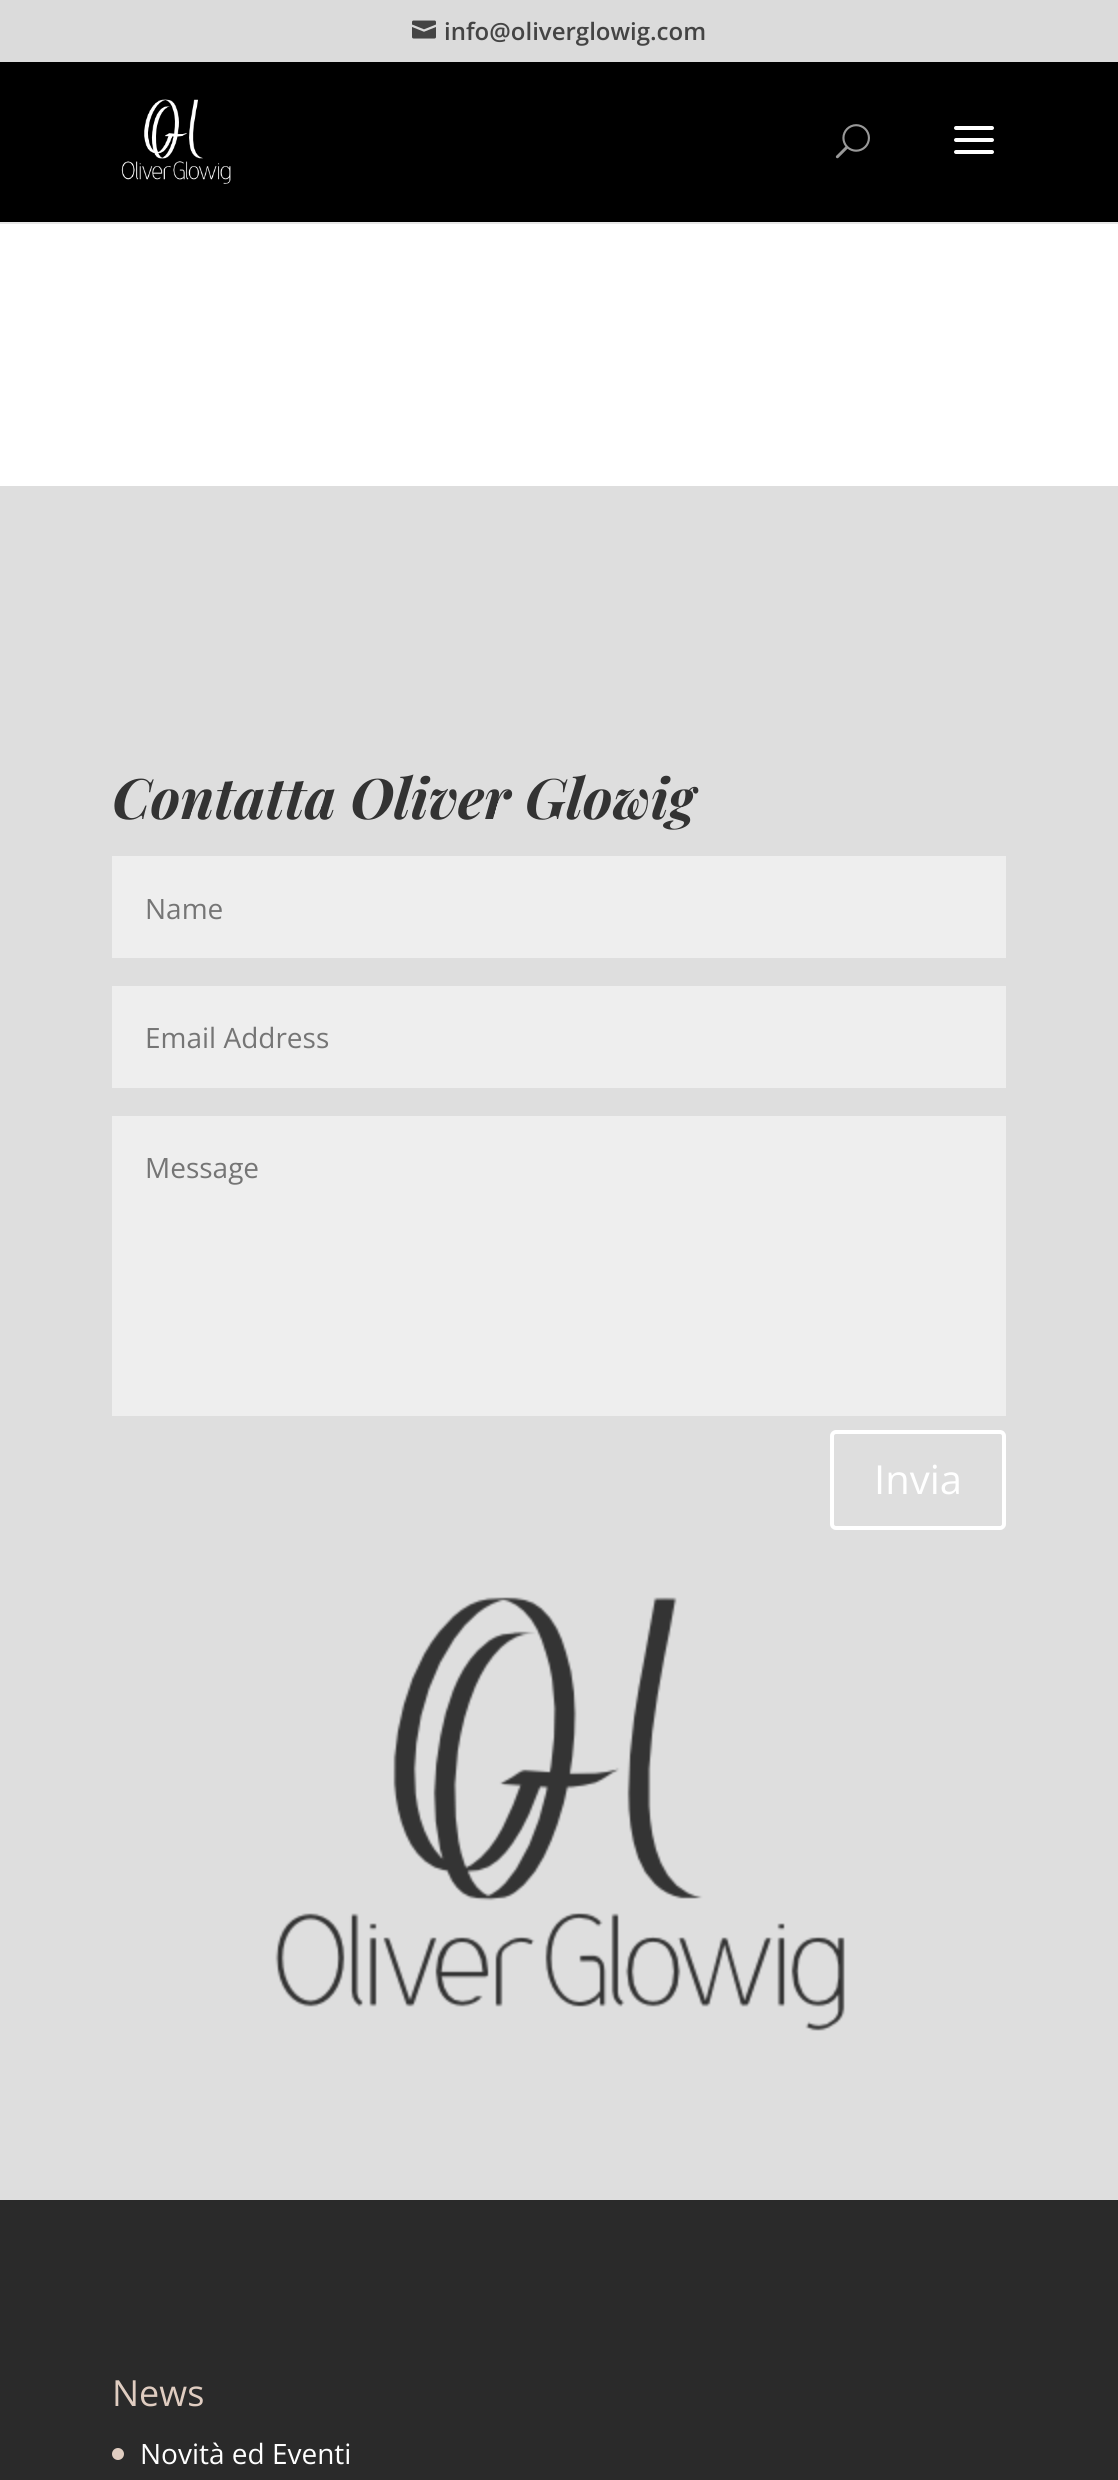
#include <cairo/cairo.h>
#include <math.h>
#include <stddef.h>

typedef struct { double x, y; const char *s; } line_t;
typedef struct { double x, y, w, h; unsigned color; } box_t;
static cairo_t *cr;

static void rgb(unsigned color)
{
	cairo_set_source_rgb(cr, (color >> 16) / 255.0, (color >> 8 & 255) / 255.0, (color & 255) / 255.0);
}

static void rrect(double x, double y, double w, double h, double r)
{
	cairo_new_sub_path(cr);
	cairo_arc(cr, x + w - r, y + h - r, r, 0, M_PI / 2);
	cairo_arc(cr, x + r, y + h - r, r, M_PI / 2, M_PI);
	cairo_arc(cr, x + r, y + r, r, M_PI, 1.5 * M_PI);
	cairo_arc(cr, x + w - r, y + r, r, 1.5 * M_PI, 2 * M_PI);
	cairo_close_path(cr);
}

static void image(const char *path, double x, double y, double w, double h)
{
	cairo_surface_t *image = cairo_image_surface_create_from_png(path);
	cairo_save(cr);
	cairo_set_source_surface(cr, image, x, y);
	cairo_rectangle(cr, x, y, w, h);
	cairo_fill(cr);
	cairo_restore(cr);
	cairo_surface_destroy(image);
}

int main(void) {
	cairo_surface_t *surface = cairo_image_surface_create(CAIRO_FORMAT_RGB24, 1118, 2480);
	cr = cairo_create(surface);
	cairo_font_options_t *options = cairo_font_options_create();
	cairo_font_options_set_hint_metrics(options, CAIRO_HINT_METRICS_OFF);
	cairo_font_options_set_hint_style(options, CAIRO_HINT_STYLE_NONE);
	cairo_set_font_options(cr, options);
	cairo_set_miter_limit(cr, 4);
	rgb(0xffffff);
	cairo_paint(cr);
	rgb(0xdbdbdb);
	cairo_rectangle(cr, 0, 0, 1118, 62);
	cairo_fill(cr);
	image("img/1.png", 412, 20, 24, 19);
	rgb(0xe6e6e6);
	cairo_rectangle(cr, 0, 222, 1118, 2);
	cairo_fill(cr);
	rgb(0x000000);
	cairo_rectangle(cr, 0, 62, 1118, 160);
	cairo_fill(cr);
	image("img/2.png", 121, 99, 110, 85);
	image("img/3.png", 835, 124, 35, 35);
	image("img/4.png", 954, 126, 40, 28);
	{
		static const box_t items[] = {
			{0, 486, 1118, 1714, 0xdedede},
			{112, 856, 894, 102, 0xeeeeee},
			{112, 986, 894, 102, 0xeeeeee},
			{112, 1116, 894, 300, 0xeeeeee},
		};
		for (size_t i = 0; i < sizeof items / sizeof *items; i++) {
			rgb(items[i].color);
			cairo_rectangle(cr, items[i].x, items[i].y, items[i].w, items[i].h);
			cairo_fill(cr);
		}
	}
	rrect(832, 1432, 172, 96, 4);
	rgb(0xffffff);
	cairo_set_line_width(cr, 4);
	cairo_stroke(cr);
	image("img/5.png", 275, 1597, 570, 434);
	rgb(0x2a2a2a);
	cairo_rectangle(cr, 0, 2200, 1118, 280);
	cairo_fill(cr);
	rgb(0xe0cdc1);
	cairo_arc(cr, 118, 2454, 6, 0, 2 * M_PI);
	cairo_fill(cr);
	cairo_select_font_face(cr, "Open Sans SemiBold", CAIRO_FONT_SLANT_NORMAL, CAIRO_FONT_WEIGHT_NORMAL);
	cairo_set_font_size(cr, 24);
	rgb(0x444444);
	cairo_move_to(cr, 444, 40);
	cairo_show_text(cr, "info@oliverglowig.com");
	cairo_select_font_face(cr, "Playfair Display", CAIRO_FONT_SLANT_ITALIC, CAIRO_FONT_WEIGHT_BOLD);
	cairo_set_font_size(cr, 56);
	rgb(0x333333);
	cairo_move_to(cr, 112, 819);
	cairo_show_text(cr, "Contatta Oliver Glowig");
	cairo_select_font_face(cr, "Open Sans", CAIRO_FONT_SLANT_NORMAL, CAIRO_FONT_WEIGHT_NORMAL);
	cairo_set_font_size(cr, 28);
	rgb(0x757575);
	{
		static const line_t items[] = {
			{145, 919, "Name"},
			{145, 1048, "Email Address"},
			{145, 1178, "Message"},
		};
		for (size_t i = 0; i < sizeof items / sizeof *items; i++) {
			cairo_move_to(cr, items[i].x, items[i].y);
			cairo_show_text(cr, items[i].s);
		}
	}
	cairo_set_font_size(cr, 40);
	rgb(0xffffff);
	cairo_move_to(cr, 874, 1494);
	cairo_show_text(cr, "Invia");
	cairo_set_font_size(cr, 36);
	rgb(0xe0cdc1);
	cairo_move_to(cr, 112, 2406);
	cairo_show_text(cr, "News");
	cairo_set_font_size(cr, 28);
	rgb(0xffffff);
	cairo_move_to(cr, 140, 2464);
	cairo_show_text(cr, "Novità ed Eventi");
	cairo_surface_write_to_png(surface, "page.png");
	cairo_font_options_destroy(options);
	cairo_destroy(cr);
	cairo_surface_destroy(surface);
	return 0;
}
